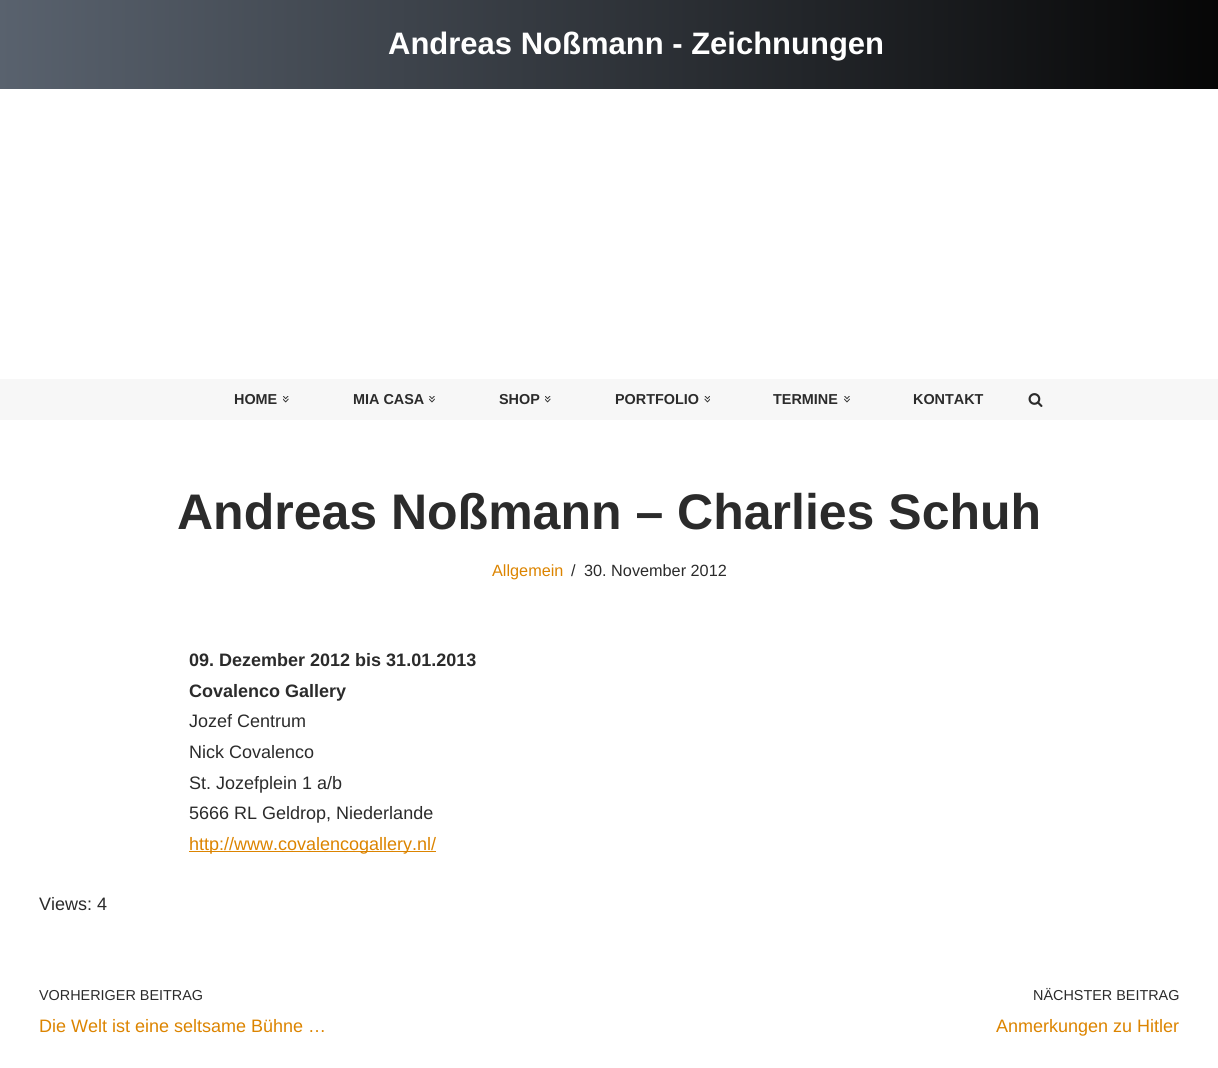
#include <cairo/cairo.h>
#include <math.h>
#include <stddef.h>

typedef struct { double x, y; const char *s; } line_t;
static cairo_t *cr;

static void rgb(unsigned color)
{
	cairo_set_source_rgb(cr, (color >> 16) / 255.0, (color >> 8 & 255) / 255.0, (color & 255) / 255.0);
}

static void image(const char *path, double x, double y, double w, double h)
{
	cairo_surface_t *image = cairo_image_surface_create_from_png(path);
	cairo_save(cr);
	cairo_set_source_surface(cr, image, x, y);
	cairo_rectangle(cr, x, y, w, h);
	cairo_fill(cr);
	cairo_restore(cr);
	cairo_surface_destroy(image);
}

int main(void) {
	cairo_surface_t *surface = cairo_image_surface_create(CAIRO_FORMAT_RGB24, 1218, 1068);
	cr = cairo_create(surface);
	cairo_font_options_t *options = cairo_font_options_create();
	cairo_font_options_set_hint_metrics(options, CAIRO_HINT_METRICS_OFF);
	cairo_font_options_set_hint_style(options, CAIRO_HINT_STYLE_NONE);
	cairo_set_font_options(cr, options);
	cairo_set_miter_limit(cr, 4);
	cairo_pattern_t *gradient;
	rgb(0xffffff);
	cairo_paint(cr);
	gradient = cairo_pattern_create_linear(0, 45, 1218, 44);
	cairo_pattern_add_color_stop_rgba(gradient, 0, 0.349, 0.384, 0.431, 1);
	cairo_pattern_add_color_stop_rgba(gradient, 1, 0.024, 0.024, 0.024, 1);
	cairo_set_source(cr, gradient);
	cairo_pattern_destroy(gradient);
	cairo_rectangle(cr, 0, 0, 1218, 89);
	cairo_fill(cr);
	rgb(0xf7f7f7);
	cairo_rectangle(cr, 0, 379, 1218, 41);
	cairo_fill(cr);
	image("img/1.png", 283, 396, 6, 7);
	image("img/2.png", 429, 396, 6, 7);
	image("img/3.png", 545, 396, 6, 7);
	image("img/4.png", 704, 396, 6, 7);
	image("img/5.png", 844, 396, 6, 7);
	image("img/6.png", 1028, 393, 15, 14);
	rgb(0xdc8400);
	cairo_rectangle(cr, 189, 851, 247, 1);
	cairo_fill(cr);
	cairo_select_font_face(cr, "Liberation Sans", CAIRO_FONT_SLANT_NORMAL, CAIRO_FONT_WEIGHT_BOLD);
	cairo_set_font_size(cr, 31);
	rgb(0xffffff);
	cairo_move_to(cr, 388, 54);
	cairo_show_text(cr, "Andreas Noßmann - Zeichnungen");
	cairo_set_font_size(cr, 14.4);
	rgb(0x2b2b2b);
	{
		static const line_t items[] = {
			{234, 404, "HOME"},
			{353, 404, "MIA CASA"},
			{499, 404, "SHOP"},
			{615, 404, "PORTFOLIO"},
			{773, 404, "TERMINE"},
			{913, 404, "KONTAKT"},
		};
		for (size_t i = 0; i < sizeof items / sizeof *items; i++) {
			cairo_move_to(cr, items[i].x, items[i].y);
			cairo_show_text(cr, items[i].s);
		}
	}
	cairo_set_font_size(cr, 50);
	cairo_move_to(cr, 177, 529);
	cairo_show_text(cr, "Andreas Noßmann – Charlies Schuh");
	cairo_select_font_face(cr, "Liberation Sans", CAIRO_FONT_SLANT_NORMAL, CAIRO_FONT_WEIGHT_NORMAL);
	cairo_set_font_size(cr, 16.25);
	rgb(0xdc8400);
	cairo_move_to(cr, 492, 576);
	cairo_show_text(cr, "Allgemein");
	rgb(0x2b2b2b);
	cairo_move_to(cr, 571, 576);
	cairo_show_text(cr, "/");
	cairo_move_to(cr, 584, 576);
	cairo_show_text(cr, "30. November 2012");
	cairo_select_font_face(cr, "Liberation Sans", CAIRO_FONT_SLANT_NORMAL, CAIRO_FONT_WEIGHT_BOLD);
	cairo_set_font_size(cr, 18);
	cairo_move_to(cr, 189, 666);
	cairo_show_text(cr, "09. Dezember 2012 bis 31.01.2013");
	cairo_move_to(cr, 189, 697);
	cairo_show_text(cr, "Covalenco Gallery");
	cairo_select_font_face(cr, "Liberation Sans", CAIRO_FONT_SLANT_NORMAL, CAIRO_FONT_WEIGHT_NORMAL);
	{
		static const line_t items[] = {
			{189, 727, "Jozef Centrum"},
			{189, 758, "Nick Covalenco"},
			{189, 789, "St. Jozefplein 1 a/b"},
			{189, 819, "5666 RL Geldrop, Niederlande"},
		};
		for (size_t i = 0; i < sizeof items / sizeof *items; i++) {
			cairo_move_to(cr, items[i].x, items[i].y);
			cairo_show_text(cr, items[i].s);
		}
	}
	rgb(0xdc8400);
	cairo_move_to(cr, 189, 850);
	cairo_show_text(cr, "http://www.covalencogallery.nl/");
	rgb(0x2b2b2b);
	cairo_move_to(cr, 39, 910);
	cairo_show_text(cr, "Views: 4");
	cairo_set_font_size(cr, 14.4);
	cairo_move_to(cr, 39, 1000);
	cairo_show_text(cr, "VORHERIGER BEITRAG");
	cairo_set_font_size(cr, 18);
	rgb(0xdc8400);
	cairo_move_to(cr, 39, 1032);
	cairo_show_text(cr, "Die Welt ist eine seltsame Bühne …");
	cairo_set_font_size(cr, 14.4);
	rgb(0x2b2b2b);
	cairo_move_to(cr, 1033, 1000);
	cairo_show_text(cr, "NÄCHSTER BEITRAG");
	cairo_set_font_size(cr, 18);
	rgb(0xdc8400);
	cairo_move_to(cr, 996, 1032);
	cairo_show_text(cr, "Anmerkungen zu Hitler");
	cairo_surface_write_to_png(surface, "page.png");
	cairo_font_options_destroy(options);
	cairo_destroy(cr);
	cairo_surface_destroy(surface);
	return 0;
}
